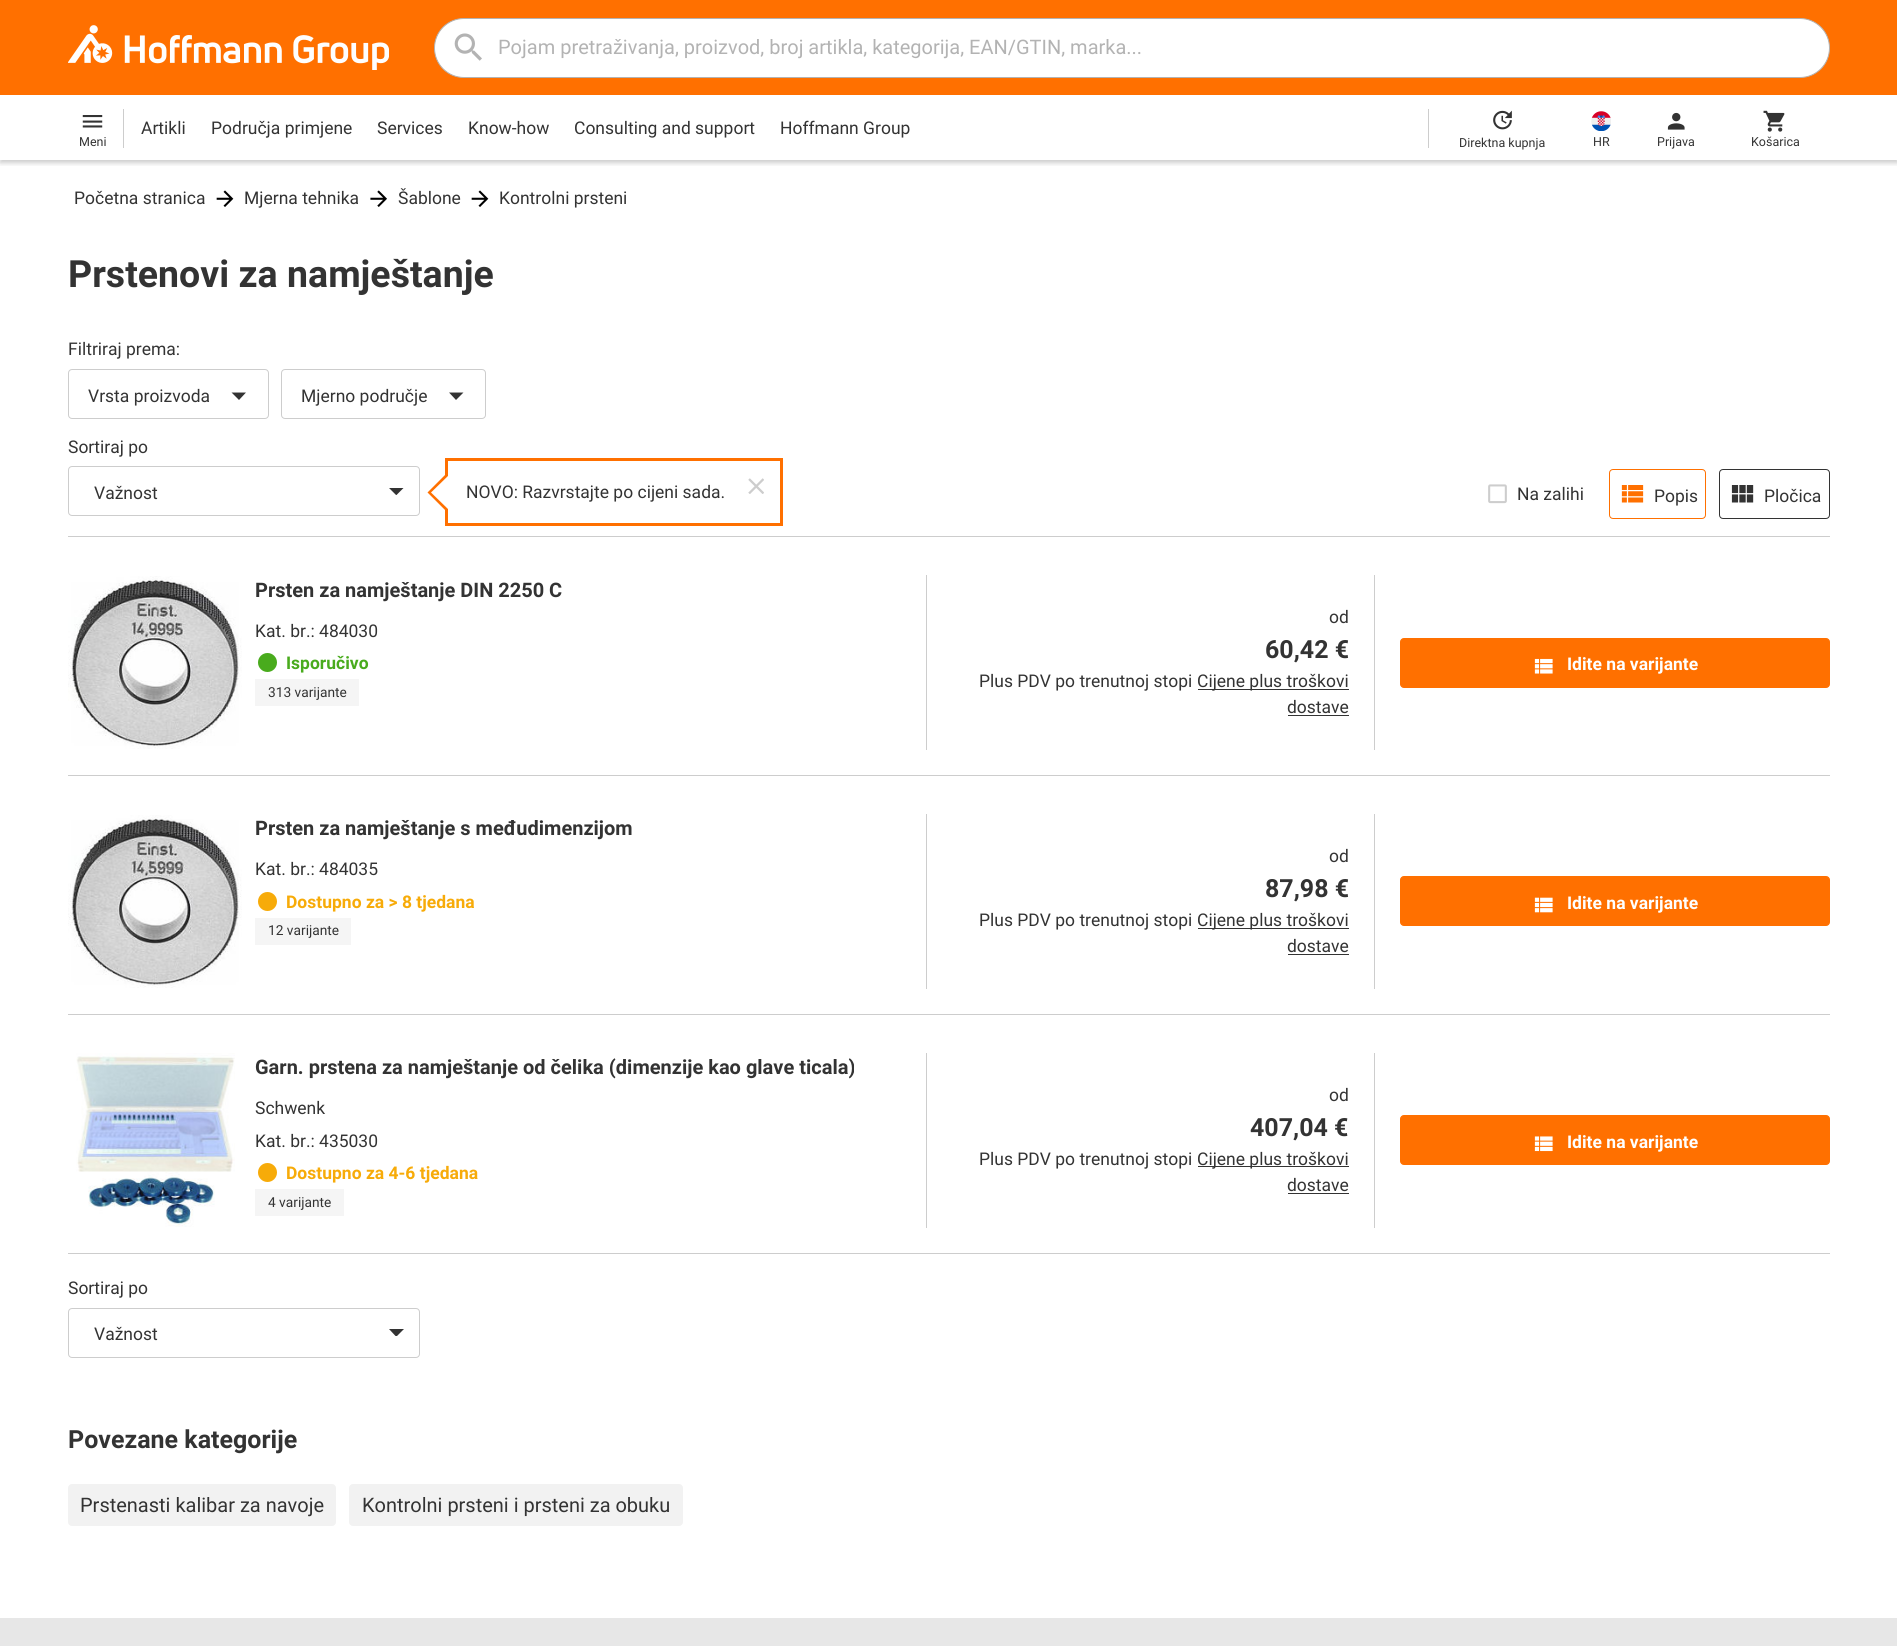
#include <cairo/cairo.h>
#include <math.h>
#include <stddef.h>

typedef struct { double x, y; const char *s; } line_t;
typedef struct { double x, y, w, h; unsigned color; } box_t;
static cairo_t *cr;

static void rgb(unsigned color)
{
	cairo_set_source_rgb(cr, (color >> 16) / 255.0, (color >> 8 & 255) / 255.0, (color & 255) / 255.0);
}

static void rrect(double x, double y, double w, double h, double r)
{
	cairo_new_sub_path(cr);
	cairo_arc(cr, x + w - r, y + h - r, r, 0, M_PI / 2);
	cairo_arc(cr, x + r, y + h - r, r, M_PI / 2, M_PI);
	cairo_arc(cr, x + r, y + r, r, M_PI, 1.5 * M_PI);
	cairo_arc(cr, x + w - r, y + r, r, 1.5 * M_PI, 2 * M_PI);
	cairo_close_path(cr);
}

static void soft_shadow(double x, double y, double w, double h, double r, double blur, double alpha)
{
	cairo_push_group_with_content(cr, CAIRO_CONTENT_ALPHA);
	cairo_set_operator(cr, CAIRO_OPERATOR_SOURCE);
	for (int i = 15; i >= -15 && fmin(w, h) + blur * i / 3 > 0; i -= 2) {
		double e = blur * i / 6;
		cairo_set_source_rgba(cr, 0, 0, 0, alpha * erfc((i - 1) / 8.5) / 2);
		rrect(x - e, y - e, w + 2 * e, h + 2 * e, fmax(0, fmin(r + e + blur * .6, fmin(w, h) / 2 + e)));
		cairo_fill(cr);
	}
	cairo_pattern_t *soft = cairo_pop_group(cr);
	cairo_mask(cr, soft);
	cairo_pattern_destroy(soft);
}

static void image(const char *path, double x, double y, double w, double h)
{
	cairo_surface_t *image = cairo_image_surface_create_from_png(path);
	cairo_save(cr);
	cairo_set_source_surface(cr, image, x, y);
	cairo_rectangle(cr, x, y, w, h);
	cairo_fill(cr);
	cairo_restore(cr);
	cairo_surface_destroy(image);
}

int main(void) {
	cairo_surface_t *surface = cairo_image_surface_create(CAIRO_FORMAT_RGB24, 1897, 1646);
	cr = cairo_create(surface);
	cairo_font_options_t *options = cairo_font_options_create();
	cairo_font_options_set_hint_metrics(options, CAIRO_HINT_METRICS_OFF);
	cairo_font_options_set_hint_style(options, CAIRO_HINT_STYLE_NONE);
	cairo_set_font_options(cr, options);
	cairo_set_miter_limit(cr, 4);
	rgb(0xffffff);
	cairo_paint(cr);
	rgb(0xff7000);
	cairo_rectangle(cr, 0, 0, 1897, 95);
	cairo_fill(cr);
	image("img/1.png", 68, 25, 321, 45);
	rgb(0xffffff);
	rrect(434.5, 18.5, 1395, 59, 29.5);
	cairo_fill_preserve(cr);
	rgb(0xb3b3b3);
	cairo_set_line_width(cr, 1);
	cairo_stroke(cr);
	image("img/2.png", 454, 33, 28, 28);
	cairo_save(cr);
	cairo_rectangle(cr, 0, 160, 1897, 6);
	cairo_clip(cr);
	rgb(0x000000);
	soft_shadow(0, 98, 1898, 65, 0, 2.5, 0.2);
	cairo_restore(cr);
	image("img/3.png", 82, 115, 21, 13);
	rgb(0xcdcdcd);
	cairo_rectangle(cr, 123, 109, 1, 39);
	cairo_fill(cr);
	cairo_rectangle(cr, 1428, 109, 1, 39);
	cairo_fill(cr);
	image("img/4.png", 1493, 110, 19, 20);
	image("img/5.png", 1591, 111, 20, 20);
	image("img/6.png", 1667, 112, 18, 18);
	image("img/7.png", 1763, 110, 22, 22);
	image("img/8.png", 216, 190, 18, 17);
	image("img/9.png", 370, 190, 17, 17);
	image("img/8.png", 471, 190, 18, 17);
	rrect(68.5, 369.5, 200, 49, 3.5);
	cairo_stroke(cr);
	rgb(0x333333);
	cairo_set_fill_rule(cr, CAIRO_FILL_RULE_EVEN_ODD);
	cairo_new_path(cr);
	cairo_move_to(cr, 246, 392.5);
	cairo_line_to(cr, 239, 400);
	cairo_line_to(cr, 231.5, 392.5);
	cairo_close_path(cr);
	cairo_fill(cr);
	rrect(281.5, 369.5, 204, 49, 3.5);
	rgb(0xcdcdcd);
	cairo_stroke(cr);
	rgb(0x333333);
	cairo_new_path(cr);
	cairo_move_to(cr, 463.5, 392.5);
	cairo_line_to(cr, 456, 400);
	cairo_line_to(cr, 449, 392.5);
	cairo_close_path(cr);
	cairo_fill(cr);
	rrect(68.5, 466.5, 351, 49, 3.5);
	rgb(0xcdcdcd);
	cairo_stroke(cr);
	rgb(0x333333);
	cairo_set_fill_rule(cr, CAIRO_FILL_RULE_WINDING);
	cairo_new_path(cr);
	cairo_move_to(cr, 389, 488);
	cairo_line_to(cr, 396, 495);
	cairo_line_to(cr, 396.5, 495);
	cairo_line_to(cr, 403.5, 488);
	cairo_close_path(cr);
	cairo_fill(cr);
	cairo_rectangle(cr, 446.5, 459.5, 335, 65);
	rgb(0xff7000);
	cairo_set_line_width(cr, 3);
	cairo_stroke(cr);
	cairo_new_path(cr);
	cairo_move_to(cr, 446, 474);
	cairo_line_to(cr, 446, 511);
	cairo_line_to(cr, 427.5, 492.5);
	cairo_close_path(cr);
	cairo_fill(cr);
	rgb(0xffffff);
	cairo_new_path(cr);
	cairo_move_to(cr, 450, 474);
	cairo_line_to(cr, 450, 511);
	cairo_line_to(cr, 431, 492.5);
	cairo_close_path(cr);
	cairo_fill(cr);
	image("img/10.png", 748, 478, 16, 16);
	image("img/11.png", 1488, 484, 19, 20);
	rrect(1609.5, 469.5, 96, 49, 3.5);
	rgb(0xff7000);
	cairo_set_line_width(cr, 1);
	cairo_stroke(cr);
	image("img/12.png", 1621, 485, 23, 18);
	rrect(1719.5, 469.5, 110, 49, 3.5);
	rgb(0x333333);
	cairo_stroke(cr);
	image("img/13.png", 1731, 485, 23, 18);
	rgb(0xcdcdcd);
	cairo_rectangle(cr, 68, 536, 1762, 1);
	cairo_fill(cr);
	cairo_rectangle(cr, 68, 775, 1762, 1);
	cairo_fill(cr);
	image("img/14.png", 68, 576, 174, 173);
	rgb(0x49ab1d);
	cairo_arc(cr, 267.5, 662.5, 11, 0, 2 * M_PI);
	cairo_fill_preserve(cr);
	rgb(0xffffff);
	cairo_set_line_width(cr, 3);
	cairo_stroke(cr);
	{
		static const box_t items[] = {
			{255, 679, 104, 27, 0xf5f5f5},
			{926, 575, 1, 175, 0xcdcdcd},
			{1198, 689, 151, 1, 0x333333},
			{1288, 715, 61, 1, 0x333333},
			{1374, 575, 1, 175, 0xcdcdcd},
		};
		for (size_t i = 0; i < sizeof items / sizeof *items; i++) {
			rgb(items[i].color);
			cairo_rectangle(cr, items[i].x, items[i].y, items[i].w, items[i].h);
			cairo_fill(cr);
		}
	}
	rgb(0xff7000);
	rrect(1400.5, 638.5, 429, 49, 3.5);
	cairo_fill_preserve(cr);
	cairo_set_line_width(cr, 1);
	cairo_stroke(cr);
	image("img/15.png", 1534, 658, 19, 16);
	rgb(0xcdcdcd);
	cairo_rectangle(cr, 68, 1014, 1762, 1);
	cairo_fill(cr);
	image("img/16.png", 68, 815, 174, 173);
	rgb(0xf7ab09);
	cairo_arc(cr, 267.5, 901.5, 11, 0, 2 * M_PI);
	cairo_fill_preserve(cr);
	rgb(0xffffff);
	cairo_set_line_width(cr, 3);
	cairo_stroke(cr);
	{
		static const box_t items[] = {
			{255, 918, 96, 27, 0xf5f5f5},
			{926, 814, 1, 175, 0xcdcdcd},
			{1198, 928, 151, 1, 0x333333},
			{1288, 954, 61, 1, 0x333333},
			{1374, 814, 1, 175, 0xcdcdcd},
		};
		for (size_t i = 0; i < sizeof items / sizeof *items; i++) {
			rgb(items[i].color);
			cairo_rectangle(cr, items[i].x, items[i].y, items[i].w, items[i].h);
			cairo_fill(cr);
		}
	}
	rgb(0xff7000);
	rrect(1400.5, 876.5, 429, 49, 3.5);
	cairo_fill_preserve(cr);
	cairo_set_line_width(cr, 1);
	cairo_stroke(cr);
	image("img/17.png", 1534, 897, 19, 16);
	rgb(0xcdcdcd);
	cairo_rectangle(cr, 68, 1253, 1762, 1);
	cairo_fill(cr);
	image("img/18.png", 76, 1053, 159, 174);
	rgb(0xf7ab09);
	cairo_arc(cr, 267.5, 1172.5, 11, 0, 2 * M_PI);
	cairo_fill_preserve(cr);
	rgb(0xffffff);
	cairo_set_line_width(cr, 3);
	cairo_stroke(cr);
	{
		static const box_t items[] = {
			{255, 1189, 89, 27, 0xf5f5f5},
			{926, 1053, 1, 175, 0xcdcdcd},
			{1198, 1166, 151, 1, 0x333333},
			{1288, 1193, 61, 1, 0x333333},
			{1374, 1053, 1, 175, 0xcdcdcd},
		};
		for (size_t i = 0; i < sizeof items / sizeof *items; i++) {
			rgb(items[i].color);
			cairo_rectangle(cr, items[i].x, items[i].y, items[i].w, items[i].h);
			cairo_fill(cr);
		}
	}
	rgb(0xff7000);
	rrect(1400.5, 1115.5, 429, 49, 3.5);
	cairo_fill_preserve(cr);
	cairo_set_line_width(cr, 1);
	cairo_stroke(cr);
	image("img/19.png", 1534, 1136, 19, 16);
	rrect(68.5, 1308.5, 351, 49, 3.5);
	rgb(0xcdcdcd);
	cairo_stroke(cr);
	rgb(0x333333);
	cairo_new_path(cr);
	cairo_move_to(cr, 404, 1329);
	cairo_line_to(cr, 389, 1329);
	cairo_line_to(cr, 395.5, 1336);
	cairo_line_to(cr, 397, 1336);
	cairo_close_path(cr);
	cairo_fill(cr);
	rgb(0xf2f2f2);
	rrect(68, 1484, 268, 42, 4);
	cairo_fill(cr);
	rrect(349, 1484, 334, 42, 4);
	cairo_fill(cr);
	rgb(0xe7e7e7);
	cairo_rectangle(cr, 0, 1618, 1897, 28);
	cairo_fill(cr);
	cairo_select_font_face(cr, "Roboto", CAIRO_FONT_SLANT_NORMAL, CAIRO_FONT_WEIGHT_NORMAL);
	cairo_set_font_size(cr, 20);
	rgb(0xb3b3b3);
	cairo_move_to(cr, 498, 54);
	cairo_show_text(cr, "Pojam pretraživanja, proizvod, broj artikla, kategorija, EAN/GTIN, marka...");
	cairo_set_font_size(cr, 17.5);
	rgb(0x333333);
	{
		static const line_t items[] = {
			{141, 134, "Artikli"},
			{211, 134, "Područja primjene"},
			{377, 134, "Services"},
			{468, 134, "Know-how"},
			{574, 134, "Consulting and support"},
			{780, 134, "Hoffmann Group"},
		};
		for (size_t i = 0; i < sizeof items / sizeof *items; i++) {
			cairo_move_to(cr, items[i].x, items[i].y);
			cairo_show_text(cr, items[i].s);
		}
	}
	cairo_set_font_size(cr, 12.5);
	{
		static const line_t items[] = {
			{79, 146, "Meni"},
			{1459, 147, "Direktna kupnja"},
			{1593, 146, "HR"},
			{1657, 146, "Prijava"},
			{1751, 146, "Košarica"},
		};
		for (size_t i = 0; i < sizeof items / sizeof *items; i++) {
			cairo_move_to(cr, items[i].x, items[i].y);
			cairo_show_text(cr, items[i].s);
		}
	}
	cairo_set_font_size(cr, 17.5);
	{
		static const line_t items[] = {
			{74, 204, "Početna stranica"},
			{244, 204, "Mjerna tehnika"},
			{398, 204, "Šablone"},
			{499, 204, "Kontrolni prsteni"},
		};
		for (size_t i = 0; i < sizeof items / sizeof *items; i++) {
			cairo_move_to(cr, items[i].x, items[i].y);
			cairo_show_text(cr, items[i].s);
		}
	}
	cairo_select_font_face(cr, "Roboto", CAIRO_FONT_SLANT_NORMAL, CAIRO_FONT_WEIGHT_BOLD);
	cairo_set_font_size(cr, 37.5);
	cairo_move_to(cr, 68, 287);
	cairo_show_text(cr, "Prstenovi za namještanje");
	cairo_select_font_face(cr, "Roboto", CAIRO_FONT_SLANT_NORMAL, CAIRO_FONT_WEIGHT_NORMAL);
	cairo_set_font_size(cr, 17.5);
	{
		static const line_t items[] = {
			{68, 355, "Filtriraj prema:"},
			{88, 402, "Vrsta proizvoda"},
			{301, 402, "Mjerno područje"},
			{68, 453, "Sortiraj po"},
			{94, 499, "Važnost"},
			{466, 498, "NOVO: Razvrstajte po cijeni sada."},
			{1517, 500, "Na zalihi"},
			{1654, 502, "Popis"},
			{1764, 502, "Pločica"},
		};
		for (size_t i = 0; i < sizeof items / sizeof *items; i++) {
			cairo_move_to(cr, items[i].x, items[i].y);
			cairo_show_text(cr, items[i].s);
		}
	}
	cairo_select_font_face(cr, "Roboto", CAIRO_FONT_SLANT_NORMAL, CAIRO_FONT_WEIGHT_BOLD);
	cairo_set_font_size(cr, 20);
	cairo_move_to(cr, 255, 597);
	cairo_show_text(cr, "Prsten za namještanje DIN 2250 C");
	cairo_select_font_face(cr, "Roboto", CAIRO_FONT_SLANT_NORMAL, CAIRO_FONT_WEIGHT_NORMAL);
	cairo_set_font_size(cr, 17.5);
	cairo_move_to(cr, 255, 637);
	cairo_show_text(cr, "Kat. br.: 484030");
	cairo_select_font_face(cr, "Roboto", CAIRO_FONT_SLANT_NORMAL, CAIRO_FONT_WEIGHT_BOLD);
	rgb(0x49ab1d);
	cairo_move_to(cr, 286, 669);
	cairo_show_text(cr, "Isporučivo");
	cairo_select_font_face(cr, "Roboto", CAIRO_FONT_SLANT_NORMAL, CAIRO_FONT_WEIGHT_NORMAL);
	cairo_set_font_size(cr, 13.75);
	rgb(0x333333);
	cairo_move_to(cr, 268, 697);
	cairo_show_text(cr, "313 varijante");
	cairo_set_font_size(cr, 17.5);
	cairo_move_to(cr, 1329, 623);
	cairo_show_text(cr, "od");
	cairo_select_font_face(cr, "Roboto", CAIRO_FONT_SLANT_NORMAL, CAIRO_FONT_WEIGHT_BOLD);
	cairo_set_font_size(cr, 25);
	cairo_move_to(cr, 1265, 658);
	cairo_show_text(cr, "60,42 €");
	cairo_select_font_face(cr, "Roboto", CAIRO_FONT_SLANT_NORMAL, CAIRO_FONT_WEIGHT_NORMAL);
	cairo_set_font_size(cr, 17.5);
	{
		static const line_t items[] = {
			{979, 687, "Plus PDV po trenutnoj stopi"},
			{1197, 687, "Cijene plus troškovi"},
			{1287, 713, "dostave"},
		};
		for (size_t i = 0; i < sizeof items / sizeof *items; i++) {
			cairo_move_to(cr, items[i].x, items[i].y);
			cairo_show_text(cr, items[i].s);
		}
	}
	cairo_select_font_face(cr, "Roboto", CAIRO_FONT_SLANT_NORMAL, CAIRO_FONT_WEIGHT_BOLD);
	rgb(0xffffff);
	cairo_move_to(cr, 1567, 670);
	cairo_show_text(cr, "Idite na varijante");
	cairo_set_font_size(cr, 20);
	rgb(0x333333);
	cairo_move_to(cr, 255, 835);
	cairo_show_text(cr, "Prsten za namještanje s međudimenzijom");
	cairo_select_font_face(cr, "Roboto", CAIRO_FONT_SLANT_NORMAL, CAIRO_FONT_WEIGHT_NORMAL);
	cairo_set_font_size(cr, 17.5);
	cairo_move_to(cr, 255, 875);
	cairo_show_text(cr, "Kat. br.: 484035");
	cairo_select_font_face(cr, "Roboto", CAIRO_FONT_SLANT_NORMAL, CAIRO_FONT_WEIGHT_BOLD);
	rgb(0xf7ab09);
	cairo_move_to(cr, 286, 908);
	cairo_show_text(cr, "Dostupno za > 8 tjedana");
	cairo_select_font_face(cr, "Roboto", CAIRO_FONT_SLANT_NORMAL, CAIRO_FONT_WEIGHT_NORMAL);
	cairo_set_font_size(cr, 13.75);
	rgb(0x333333);
	cairo_move_to(cr, 268, 935);
	cairo_show_text(cr, "12 varijante");
	cairo_set_font_size(cr, 17.5);
	cairo_move_to(cr, 1329, 862);
	cairo_show_text(cr, "od");
	cairo_select_font_face(cr, "Roboto", CAIRO_FONT_SLANT_NORMAL, CAIRO_FONT_WEIGHT_BOLD);
	cairo_set_font_size(cr, 25);
	cairo_move_to(cr, 1265, 897);
	cairo_show_text(cr, "87,98 €");
	cairo_select_font_face(cr, "Roboto", CAIRO_FONT_SLANT_NORMAL, CAIRO_FONT_WEIGHT_NORMAL);
	cairo_set_font_size(cr, 17.5);
	{
		static const line_t items[] = {
			{979, 926, "Plus PDV po trenutnoj stopi"},
			{1197, 926, "Cijene plus troškovi"},
			{1287, 952, "dostave"},
		};
		for (size_t i = 0; i < sizeof items / sizeof *items; i++) {
			cairo_move_to(cr, items[i].x, items[i].y);
			cairo_show_text(cr, items[i].s);
		}
	}
	cairo_select_font_face(cr, "Roboto", CAIRO_FONT_SLANT_NORMAL, CAIRO_FONT_WEIGHT_BOLD);
	rgb(0xffffff);
	cairo_move_to(cr, 1567, 909);
	cairo_show_text(cr, "Idite na varijante");
	cairo_set_font_size(cr, 20);
	rgb(0x333333);
	cairo_move_to(cr, 255, 1074);
	cairo_show_text(cr, "Garn. prstena za namještanje od čelika (dimenzije kao glave ticala)");
	cairo_select_font_face(cr, "Roboto", CAIRO_FONT_SLANT_NORMAL, CAIRO_FONT_WEIGHT_NORMAL);
	cairo_set_font_size(cr, 17.5);
	cairo_move_to(cr, 255, 1114);
	cairo_show_text(cr, "Schwenk");
	cairo_move_to(cr, 255, 1147);
	cairo_show_text(cr, "Kat. br.: 435030");
	cairo_select_font_face(cr, "Roboto", CAIRO_FONT_SLANT_NORMAL, CAIRO_FONT_WEIGHT_BOLD);
	rgb(0xf7ab09);
	cairo_move_to(cr, 286, 1179);
	cairo_show_text(cr, "Dostupno za 4-6 tjedana");
	cairo_select_font_face(cr, "Roboto", CAIRO_FONT_SLANT_NORMAL, CAIRO_FONT_WEIGHT_NORMAL);
	cairo_set_font_size(cr, 13.75);
	rgb(0x333333);
	cairo_move_to(cr, 268, 1207);
	cairo_show_text(cr, "4 varijante");
	cairo_set_font_size(cr, 17.5);
	cairo_move_to(cr, 1329, 1101);
	cairo_show_text(cr, "od");
	cairo_select_font_face(cr, "Roboto", CAIRO_FONT_SLANT_NORMAL, CAIRO_FONT_WEIGHT_BOLD);
	cairo_set_font_size(cr, 25);
	cairo_move_to(cr, 1250, 1136);
	cairo_show_text(cr, "407,04 €");
	cairo_select_font_face(cr, "Roboto", CAIRO_FONT_SLANT_NORMAL, CAIRO_FONT_WEIGHT_NORMAL);
	cairo_set_font_size(cr, 17.5);
	{
		static const line_t items[] = {
			{979, 1165, "Plus PDV po trenutnoj stopi"},
			{1197, 1165, "Cijene plus troškovi"},
			{1287, 1191, "dostave"},
		};
		for (size_t i = 0; i < sizeof items / sizeof *items; i++) {
			cairo_move_to(cr, items[i].x, items[i].y);
			cairo_show_text(cr, items[i].s);
		}
	}
	cairo_select_font_face(cr, "Roboto", CAIRO_FONT_SLANT_NORMAL, CAIRO_FONT_WEIGHT_BOLD);
	rgb(0xffffff);
	cairo_move_to(cr, 1567, 1148);
	cairo_show_text(cr, "Idite na varijante");
	cairo_select_font_face(cr, "Roboto", CAIRO_FONT_SLANT_NORMAL, CAIRO_FONT_WEIGHT_NORMAL);
	rgb(0x333333);
	cairo_move_to(cr, 68, 1294);
	cairo_show_text(cr, "Sortiraj po");
	cairo_move_to(cr, 94, 1340);
	cairo_show_text(cr, "Važnost");
	cairo_select_font_face(cr, "Roboto", CAIRO_FONT_SLANT_NORMAL, CAIRO_FONT_WEIGHT_BOLD);
	cairo_set_font_size(cr, 25);
	cairo_move_to(cr, 68, 1448);
	cairo_show_text(cr, "Povezane kategorije");
	cairo_select_font_face(cr, "Roboto", CAIRO_FONT_SLANT_NORMAL, CAIRO_FONT_WEIGHT_NORMAL);
	cairo_set_font_size(cr, 20);
	cairo_move_to(cr, 80, 1512);
	cairo_show_text(cr, "Prstenasti kalibar za navoje");
	cairo_move_to(cr, 362, 1512);
	cairo_show_text(cr, "Kontrolni prsteni i prsteni za obuku");
	cairo_surface_write_to_png(surface, "page.png");
	cairo_font_options_destroy(options);
	cairo_destroy(cr);
	cairo_surface_destroy(surface);
	return 0;
}
